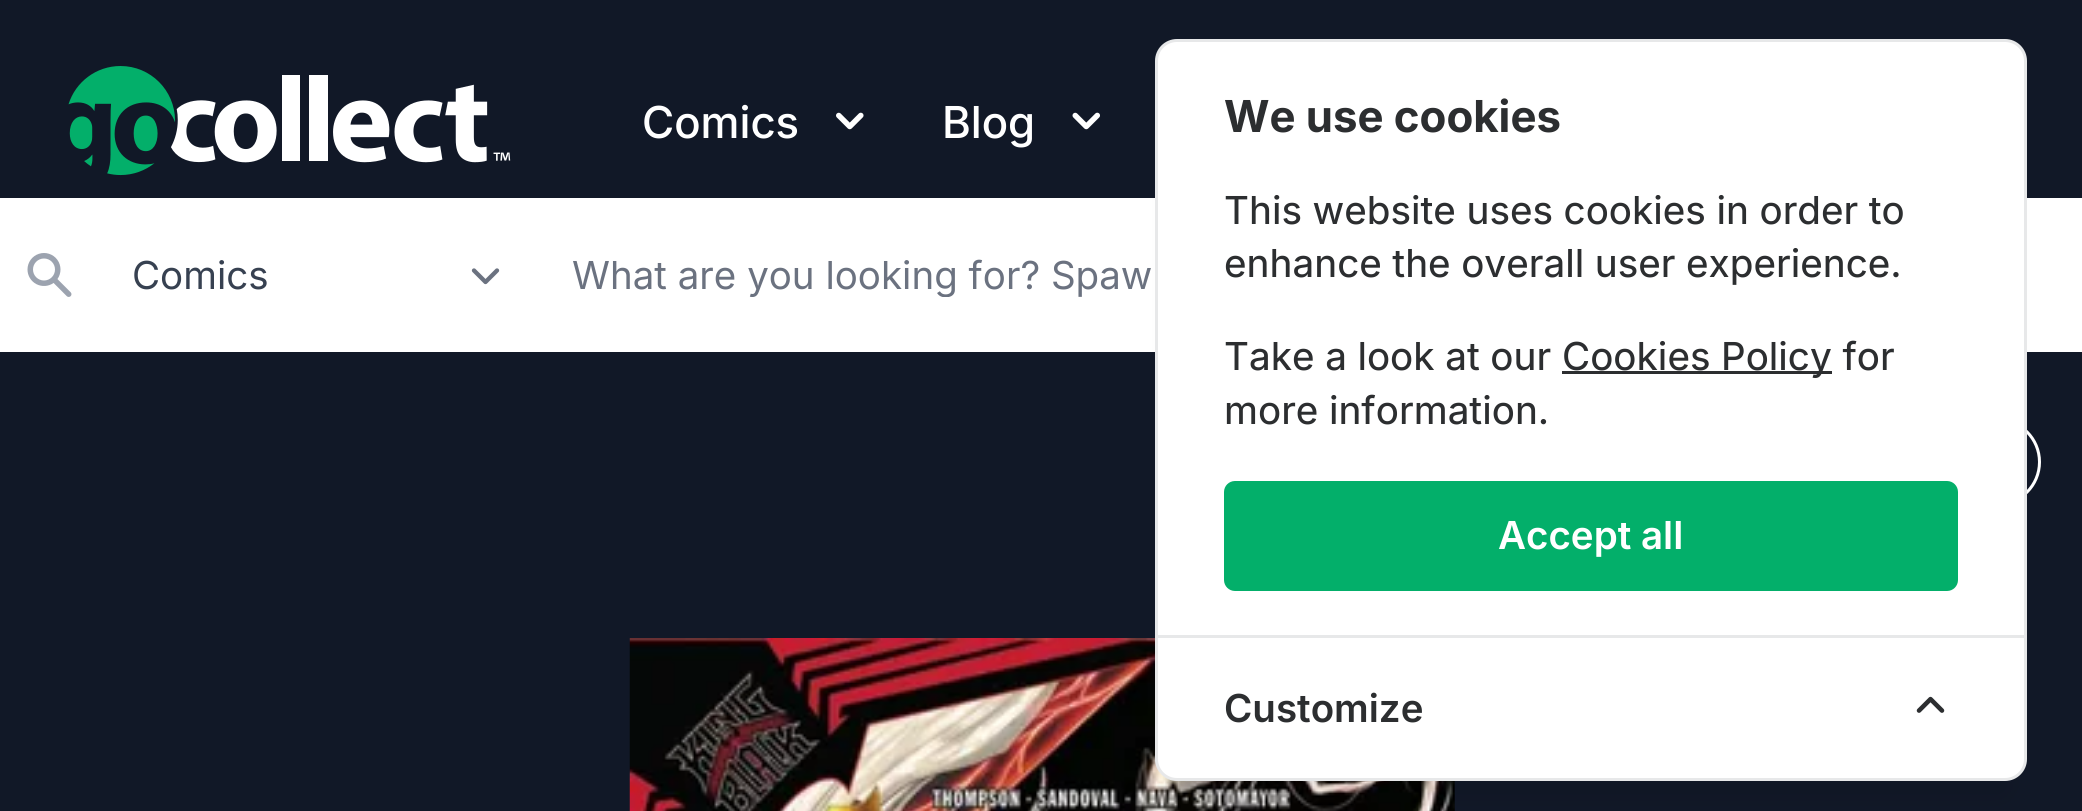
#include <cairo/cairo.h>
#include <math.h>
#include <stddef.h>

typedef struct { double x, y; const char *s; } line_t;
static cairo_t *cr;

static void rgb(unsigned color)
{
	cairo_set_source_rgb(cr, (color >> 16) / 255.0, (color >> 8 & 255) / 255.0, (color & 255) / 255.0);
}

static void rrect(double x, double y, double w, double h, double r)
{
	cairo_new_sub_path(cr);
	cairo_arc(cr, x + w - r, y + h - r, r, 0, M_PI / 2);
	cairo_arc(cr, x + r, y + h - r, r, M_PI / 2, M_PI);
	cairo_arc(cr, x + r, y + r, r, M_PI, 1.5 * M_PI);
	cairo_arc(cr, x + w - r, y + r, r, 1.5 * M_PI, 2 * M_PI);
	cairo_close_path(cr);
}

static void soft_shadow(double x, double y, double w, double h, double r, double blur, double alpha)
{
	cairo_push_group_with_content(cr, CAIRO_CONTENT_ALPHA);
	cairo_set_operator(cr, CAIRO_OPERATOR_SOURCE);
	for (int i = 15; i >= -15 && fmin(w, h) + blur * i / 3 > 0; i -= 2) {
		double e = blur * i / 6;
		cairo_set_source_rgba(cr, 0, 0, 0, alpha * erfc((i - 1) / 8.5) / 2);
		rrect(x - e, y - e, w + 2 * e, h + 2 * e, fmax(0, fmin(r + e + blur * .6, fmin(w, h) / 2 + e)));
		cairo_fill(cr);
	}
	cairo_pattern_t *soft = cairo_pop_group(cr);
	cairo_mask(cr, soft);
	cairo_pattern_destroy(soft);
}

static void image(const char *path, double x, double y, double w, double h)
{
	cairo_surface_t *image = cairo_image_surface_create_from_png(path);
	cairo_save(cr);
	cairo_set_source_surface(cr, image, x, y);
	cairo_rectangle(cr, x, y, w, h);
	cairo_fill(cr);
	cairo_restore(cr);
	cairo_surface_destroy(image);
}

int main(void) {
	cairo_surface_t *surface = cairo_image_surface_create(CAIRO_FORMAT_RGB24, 2082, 811);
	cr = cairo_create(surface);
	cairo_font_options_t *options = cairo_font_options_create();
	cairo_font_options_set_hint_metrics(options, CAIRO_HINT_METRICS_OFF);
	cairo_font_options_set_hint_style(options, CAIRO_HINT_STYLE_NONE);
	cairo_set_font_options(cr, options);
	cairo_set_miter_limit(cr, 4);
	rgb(0x111827);
	cairo_paint(cr);
	image("img/1.png", 68, 66, 443, 110);
	image("img/2.png", 836, 112, 28, 18);
	image("img/3.png", 1072, 112, 28, 18);
	rgb(0xffffff);
	cairo_rectangle(cr, 0, 198, 2082, 154);
	cairo_fill(cr);
	image("img/4.png", 27, 253, 45, 44);
	cairo_new_path(cr);
	cairo_move_to(cr, 474, 270.5);
	cairo_line_to(cr, 485.5, 282);
	cairo_line_to(cr, 497, 270.5);
	rgb(0x6b7280);
	cairo_set_line_width(cr, 4.3);
	cairo_set_line_cap(cr, CAIRO_LINE_CAP_ROUND);
	cairo_set_line_join(cr, CAIRO_LINE_JOIN_ROUND);
	cairo_stroke(cr);
	rrect(1651.5, 419.5, 388, 85, 42.5);
	rgb(0xffffff);
	cairo_set_line_width(cr, 3);
	cairo_set_line_cap(cr, CAIRO_LINE_CAP_BUTT);
	cairo_set_line_join(cr, CAIRO_LINE_JOIN_MITER);
	cairo_stroke(cr);
	image("img/5.png", 629, 638, 826, 173);
	rgb(0x000000);
	soft_shadow(1177, 94, 828, 698, 0, 16.5, 0.08);
	rgb(0xffffff);
	rrect(1156.5, 40.5, 869, 739, 20.5);
	cairo_fill_preserve(cr);
	rgb(0xe7e8e9);
	cairo_stroke(cr);
	rgb(0x2c2e30);
	cairo_rectangle(cr, 1562, 371, 270, 3);
	cairo_fill(cr);
	rgb(0x03af6a);
	rrect(1225.5, 482.5, 731, 107, 9.5);
	cairo_fill_preserve(cr);
	cairo_stroke(cr);
	rgb(0xe7e8e9);
	cairo_rectangle(cr, 1158, 635, 866, 3);
	cairo_fill(cr);
	image("img/6.png", 1916, 696, 29, 17);
	cairo_select_font_face(cr, "Inter Medium", CAIRO_FONT_SLANT_NORMAL, CAIRO_FONT_WEIGHT_NORMAL);
	cairo_set_font_size(cr, 44);
	rgb(0xffffff);
	cairo_move_to(cr, 642, 138);
	cairo_show_text(cr, "Comics");
	cairo_move_to(cr, 942, 138);
	cairo_show_text(cr, "Blog");
	cairo_select_font_face(cr, "Inter", CAIRO_FONT_SLANT_NORMAL, CAIRO_FONT_WEIGHT_NORMAL);
	cairo_set_font_size(cr, 38.5);
	rgb(0x374151);
	cairo_move_to(cr, 132, 289);
	cairo_show_text(cr, "Comics");
	cairo_save(cr);
	cairo_rectangle(cr, 572, 250, 1416, 47);
	cairo_clip(cr);
	rgb(0x6b7280);
	cairo_move_to(cr, 572, 289);
	cairo_show_text(cr, "What are you looking for? Spaw");
	cairo_restore(cr);
	cairo_select_font_face(cr, "Inter", CAIRO_FONT_SLANT_NORMAL, CAIRO_FONT_WEIGHT_BOLD);
	cairo_set_font_size(cr, 44);
	rgb(0x2c2e30);
	cairo_move_to(cr, 1224, 132);
	cairo_show_text(cr, "We use cookies");
	cairo_select_font_face(cr, "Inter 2", CAIRO_FONT_SLANT_NORMAL, CAIRO_FONT_WEIGHT_NORMAL);
	cairo_set_font_size(cr, 38.5);
	{
		static const line_t items[] = {
			{1224, 224, "This website uses cookies in order to"},
			{1224, 277, "enhance the overall user experience."},
			{1224, 370, "Take a look at our"},
			{1562, 370, "Cookies Policy for"},
			{1224, 424, "more information."},
		};
		for (size_t i = 0; i < sizeof items / sizeof *items; i++) {
			cairo_move_to(cr, items[i].x, items[i].y);
			cairo_show_text(cr, items[i].s);
		}
	}
	cairo_select_font_face(cr, "Inter SemiBold", CAIRO_FONT_SLANT_NORMAL, CAIRO_FONT_WEIGHT_NORMAL);
	rgb(0xffffff);
	cairo_move_to(cr, 1498, 549);
	cairo_show_text(cr, "Accept all");
	rgb(0x2c2e30);
	cairo_move_to(cr, 1224, 722);
	cairo_show_text(cr, "Customize");
	cairo_surface_write_to_png(surface, "page.png");
	cairo_font_options_destroy(options);
	cairo_destroy(cr);
	cairo_surface_destroy(surface);
	return 0;
}
